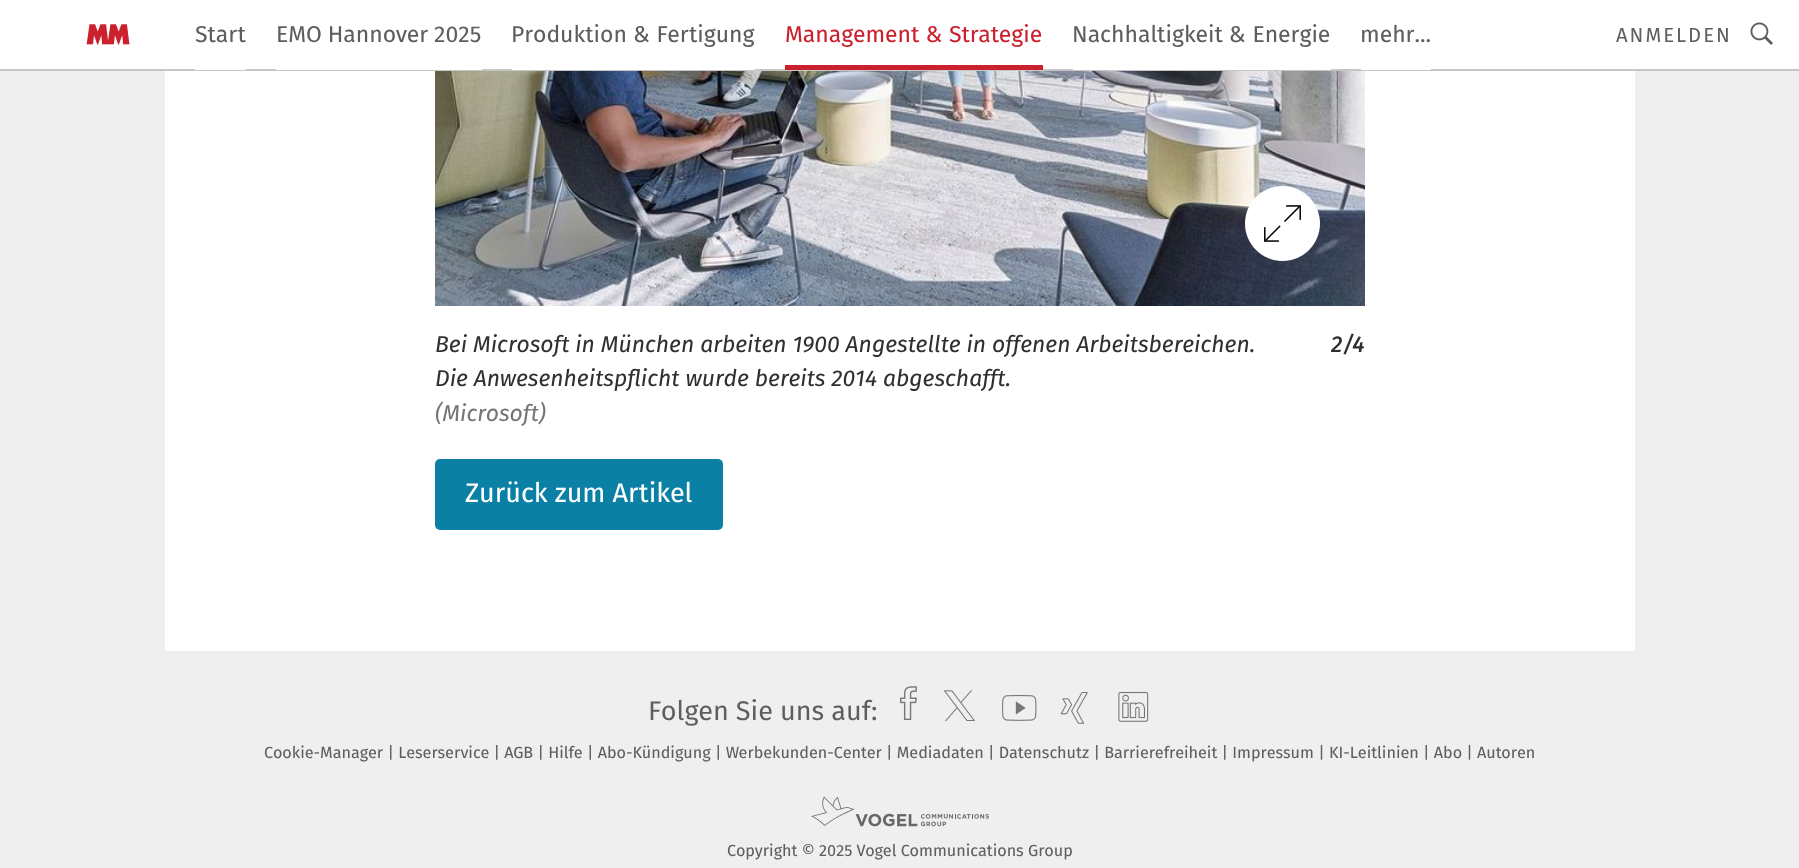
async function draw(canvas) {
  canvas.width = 1799
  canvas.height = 868
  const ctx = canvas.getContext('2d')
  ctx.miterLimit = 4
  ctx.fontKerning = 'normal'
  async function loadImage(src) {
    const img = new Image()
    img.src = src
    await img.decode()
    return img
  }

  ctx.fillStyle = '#efefef'
  ctx.fillRect(0, 0, 1799, 868)
  ctx.fillStyle = '#fff'
  ctx.fillRect(165, 71, 1470, 580)
  ctx.fillRect(0, 0, 1799, 69)
  ctx.fillStyle = '#c6c6c6'
  ctx.fillRect(0, 69, 1799, 2)
  ctx.drawImage(await loadImage('image0.png'), 86, 24, 44, 21)
  ctx.fillStyle = '#fff'
  ctx.fillRect(195, 69, 51, 1)
  ctx.font = '22.95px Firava'
  ctx.fillStyle = '#5e5e5e'
  ctx.fillText('Start', 195, 42)
  ctx.fillStyle = '#fff'
  ctx.fillRect(276, 69, 206, 1)
  ctx.fillStyle = '#5e5e5e'
  ctx.fillText('EMO Hannover 2025', 276, 42)
  ctx.fillStyle = '#fff'
  ctx.fillRect(512, 69, 243, 1)
  ctx.fillStyle = '#5e5e5e'
  ctx.fillText('Produktion & Fertigung', 511, 42)
  ctx.fillStyle = '#cb212f'
  ctx.fillRect(785, 65, 258, 5)
  ctx.fillText('Management & Strategie', 785, 42)
  ctx.fillStyle = '#fff'
  ctx.fillRect(1073, 69, 258, 1)
  ctx.fillStyle = '#5e5e5e'
  ctx.fillText('Nachhaltigkeit & Energie', 1072, 42)
  ctx.fillStyle = '#fff'
  ctx.fillRect(1361, 69, 70, 1)
  ctx.fillStyle = '#5e5e5e'
  ctx.fillText('mehr...', 1360, 42)
  ctx.letterSpacing = '2px'
  ctx.font = '20.25px "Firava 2"'
  ctx.fillText('ANMELDEN', 1616, 42)
  ctx.drawImage(await loadImage('image1.png'), 1750, 22, 23, 23)
  ctx.drawImage(await loadImage('image2.png'), 435, 71, 930, 235)
  ctx.drawImage(await loadImage('image3.png'), 1245, 186, 75, 75)
  ctx.letterSpacing = '0px'
  ctx.font = 'italic 22.95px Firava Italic'
  ctx.fillStyle = '#303030'
  ctx.fillText('Bei Microsoft in München arbeiten 1900 Angestellte in offenen Arbeitsbereichen.', 435, 352)
  ctx.fillText('Die Anwesenheitspflicht wurde bereits 2014 abgeschafft.', 435, 386)
  ctx.fillStyle = '#767676'
  ctx.fillText('(Microsoft)', 435, 421)
  ctx.font = 'italic 500 22.95px Firava Italic'
  ctx.fillStyle = '#303030'
  ctx.fillText('2/4', 1331, 352)
  ctx.fillStyle = '#0a80a5'
  ctx.beginPath()
  ctx.roundRect(435, 459, 288, 71, 5)
  ctx.fill()
  ctx.font = '27px Firava'
  ctx.fillStyle = '#fff'
  ctx.fillText('Zurück zum Artikel', 465, 502)
  ctx.font = '27px "Firava 2"'
  ctx.fillStyle = '#5e5e5e'
  ctx.fillText('Folgen Sie uns auf:', 648, 720)
  ctx.drawImage(await loadImage('image4.png'), 900, 686, 17, 34)
  ctx.drawImage(await loadImage('image5.png'), 943, 690, 33, 31)
  ctx.drawImage(await loadImage('image6.png'), 1002, 695, 35, 26)
  ctx.drawImage(await loadImage('image7.png'), 1060, 692, 28, 32)
  ctx.drawImage(await loadImage('image8.png'), 1118, 691, 31, 31)
  ctx.font = '16.2px Firava'
  ctx.fillText('Cookie-Manager | Leserservice | AGB | Hilfe | Abo-Kündigung | Werbekunden-Center | Mediadaten | Datenschutz | Barrierefreiheit | Impressum | KI-Leitlinien | Abo | Autoren', 264, 758)
  ctx.drawImage(await loadImage('image9.png'), 811, 796, 178, 31)
  ctx.fillText('Copyright © 2025 Vogel Communications Group', 727, 856)
}

draw(document.querySelector('canvas'))
